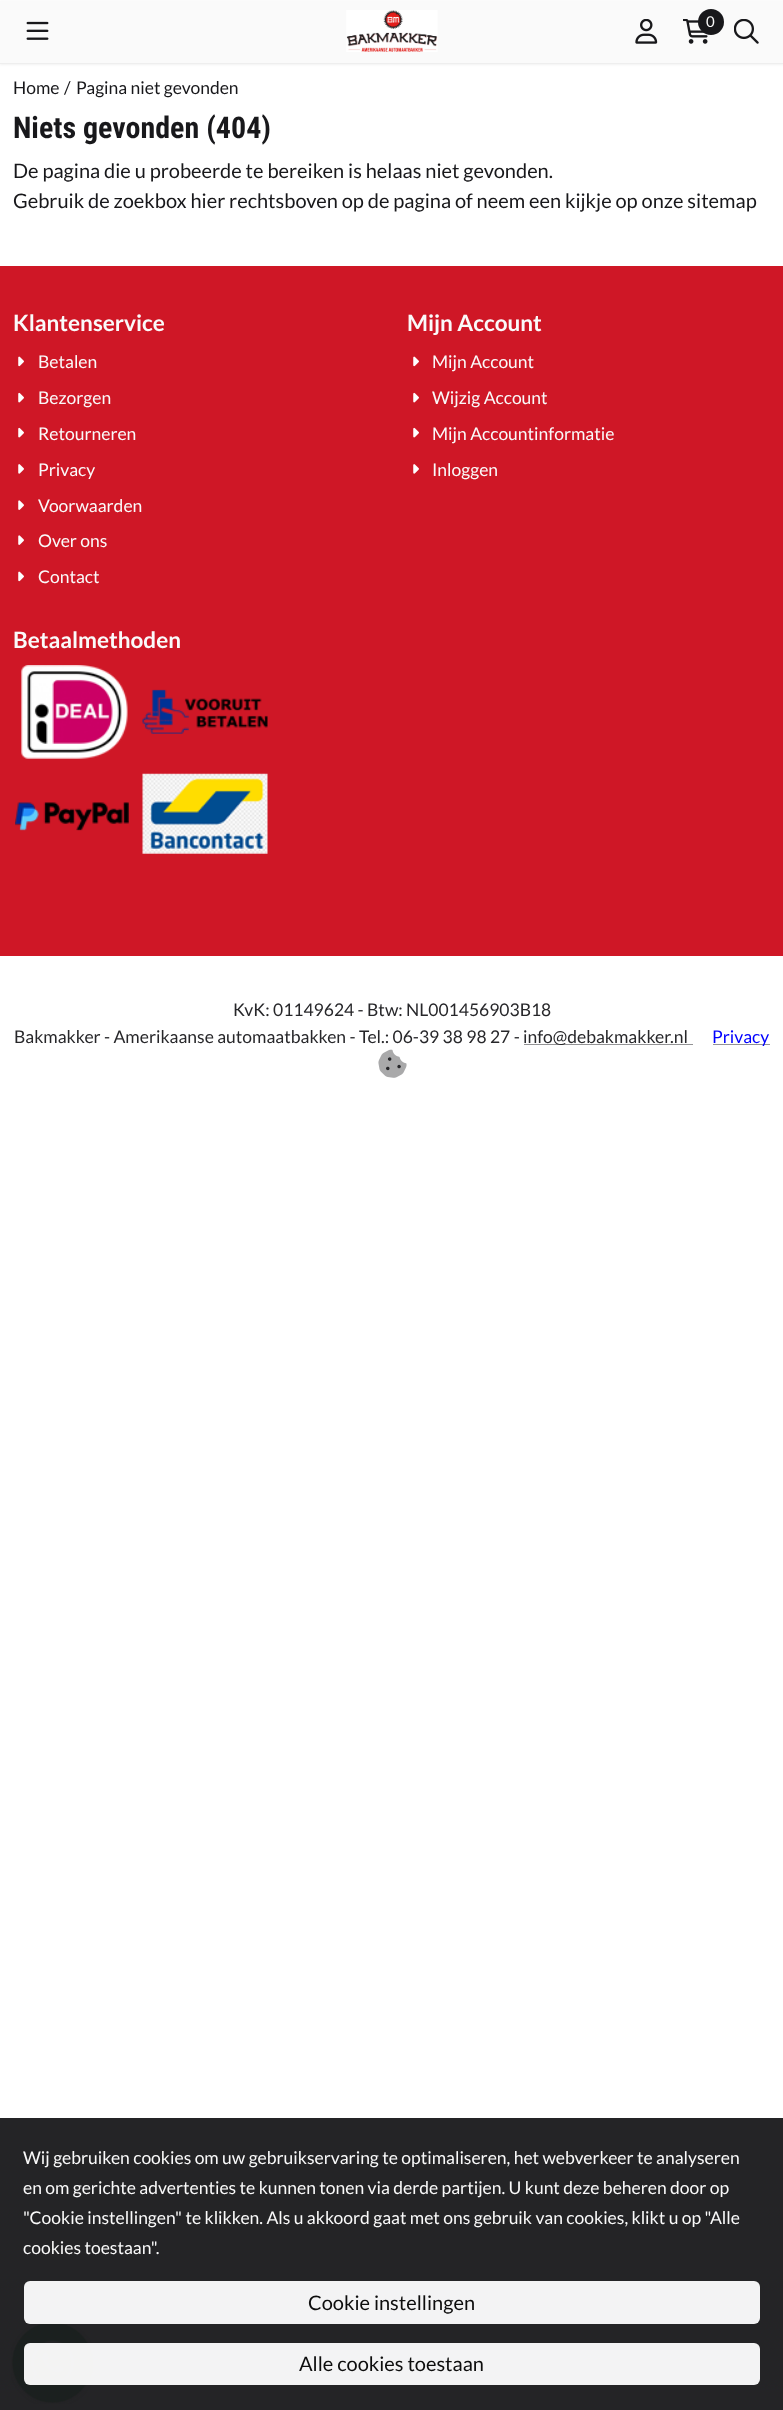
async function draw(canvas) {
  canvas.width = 783
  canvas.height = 2410
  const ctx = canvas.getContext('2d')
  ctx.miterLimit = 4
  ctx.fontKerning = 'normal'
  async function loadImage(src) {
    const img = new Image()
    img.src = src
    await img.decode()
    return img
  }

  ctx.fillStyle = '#fff'
  ctx.fillRect(0, 0, 783, 2410)
  ctx.fillStyle = '#242426'
  ctx.fillRect(0, 2118, 783, 292)
  ctx.fillStyle = '#0000000d'
  ctx.filter = 'blur(1px)'
  ctx.beginPath()
  ctx.rect(0, 1, 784, 64)
  ctx.fill()
  ctx.filter = 'none'
  ctx.fillStyle = '#fafafa'
  ctx.fillRect(0, 1, 783, 62)
  ctx.fillStyle = '#eee'
  ctx.fillRect(0, 63, 783, 1)
  ctx.drawImage(await loadImage('image0.png'), 26, 21, 23, 19)
  ctx.drawImage(await loadImage('image1.png'), 346, 10, 92, 42)
  ctx.drawImage(await loadImage('image2.png'), 635, 19, 23, 25)
  ctx.drawImage(await loadImage('image3.png'), 683, 19, 25, 25)
  ctx.fillStyle = '#18181b'
  ctx.beginPath()
  ctx.arc(711, 22, 13, 0, 2 * Math.PI)
  ctx.fill()
  ctx.font = '15px Lato'
  ctx.fillStyle = '#fafafa'
  ctx.fillText('0', 706, 27)
  ctx.drawImage(await loadImage('image4.png'), 734, 19, 25, 25)
  ctx.font = '17.5px Lato'
  ctx.fillStyle = '#18181b'
  ctx.fillText('Home', 13, 94)
  ctx.fillText('/', 64, 94)
  ctx.fillText('Pagina niet gevonden', 76, 94)
  ctx.font = 'bold 30px Roboto Condensed'
  ctx.fillText('Niets gevonden (404)', 13, 138)
  ctx.font = '20px Lato'
  ctx.fillText('De pagina die u probeerde te bereiken is helaas niet gevonden.', 13, 178)
  ctx.fillText('Gebruik de zoekbox hier rechtsboven op de pagina of neem een kijkje op onze sitemap', 13, 208)
  ctx.fillStyle = '#cf1726'
  ctx.fillRect(0, 266, 783, 690)
  ctx.font = 'bold 22.5px Lato'
  ctx.fillStyle = '#fafafa'
  ctx.fillText('Klantenservice', 13, 331)
  ctx.drawImage(await loadImage('image5.png'), 18, 356, 6, 11)
  ctx.font = '17.5px Lato'
  ctx.fillText('Betalen', 38, 368)
  ctx.drawImage(await loadImage('image6.png'), 18, 392, 6, 11)
  ctx.fillText('Bezorgen', 38, 404)
  ctx.drawImage(await loadImage('image6.png'), 18, 427, 6, 11)
  ctx.fillText('Retourneren', 38, 440)
  ctx.drawImage(await loadImage('image7.png'), 18, 464, 6, 10)
  ctx.fillText('Privacy', 38, 476)
  ctx.drawImage(await loadImage('image8.png'), 18, 500, 6, 10)
  ctx.fillText('Voorwaarden', 38, 512)
  ctx.drawImage(await loadImage('image8.png'), 18, 535, 6, 10)
  ctx.fillText('Over ons', 38, 547)
  ctx.drawImage(await loadImage('image5.png'), 18, 571, 6, 11)
  ctx.fillText('Contact', 38, 583)
  ctx.font = 'bold 22.5px Lato'
  ctx.fillText('Mijn Account', 407, 331)
  ctx.drawImage(await loadImage('image5.png'), 413, 356, 6, 11)
  ctx.font = '17.5px Lato'
  ctx.fillText('Mijn Account', 432, 368)
  ctx.drawImage(await loadImage('image6.png'), 413, 392, 6, 11)
  ctx.fillText('Wijzig Account', 432, 404)
  ctx.drawImage(await loadImage('image6.png'), 413, 427, 6, 11)
  ctx.fillText('Mijn Accountinformatie', 432, 440)
  ctx.drawImage(await loadImage('image7.png'), 413, 464, 6, 10)
  ctx.fillText('Inloggen', 432, 476)
  ctx.font = 'bold 22.5px Lato'
  ctx.fillText('Betaalmethoden', 13, 648)
  ctx.drawImage(await loadImage('image9.png'), 21, 665, 107, 94)
  ctx.drawImage(await loadImage('image10.png'), 142, 689, 126, 45)
  ctx.drawImage(await loadImage('image11.png'), 15, 802, 114, 29)
  ctx.drawImage(await loadImage('image12.png'), 142, 773, 126, 81)
  ctx.font = '17.5px Lato'
  ctx.fillStyle = '#27272a'
  ctx.fillText('KvK: 01149624 - Btw: NL001456903B18', 233, 1016)
  ctx.fillText('Bakmakker - Amerikaanse automaatbakken - Tel.: 06-39 38 98 27 -', 14, 1043)
  ctx.fillStyle = '#939395'
  ctx.fillRect(524, 1044, 169, 1)
  ctx.fillStyle = '#27272a'
  ctx.fillText('info@debakmakker.nl', 523, 1043)
  ctx.fillStyle = '#939395'
  ctx.fillRect(713, 1044, 57, 1)
  ctx.fillStyle = '#00f'
  ctx.fillText('Privacy', 712, 1043)
  ctx.drawImage(await loadImage('image13.png'), 378, 1049, 29, 29)
  ctx.fillStyle = '#fafafa'
  ctx.fillText('Wij gebruiken cookies om uw gebruikservaring te optimaliseren, het webverkeer te analyseren', 23, 2164)
  ctx.fillText('en om gerichte advertenties te kunnen tonen via derde partijen. U kunt deze beheren door op', 23, 2194)
  ctx.fillText('"Cookie instellingen" te klikken. Als u akkoord gaat met ons gebruik van cookies, klikt u op "Alle', 23, 2224)
  ctx.fillText('cookies toestaan".', 23, 2254)
  ctx.drawImage(await loadImage('image14.png'), 11, 2321, 83, 83)
  ctx.fillStyle = '#fffffff2'
  ctx.beginPath()
  ctx.roundRect(24, 2281, 736, 43, 6)
  ctx.fill()
  ctx.font = '20px Lato'
  ctx.fillStyle = '#0d0d0d'
  ctx.fillText('Cookie instellingen', 308, 2310)
  ctx.fillStyle = '#fffffff2'
  ctx.beginPath()
  ctx.roundRect(24, 2343, 736, 42, 6)
  ctx.fill()
  ctx.fillStyle = '#0d0d0d'
  ctx.fillText('Alle cookies toestaan', 299, 2371)
}

draw(document.querySelector('canvas'))
